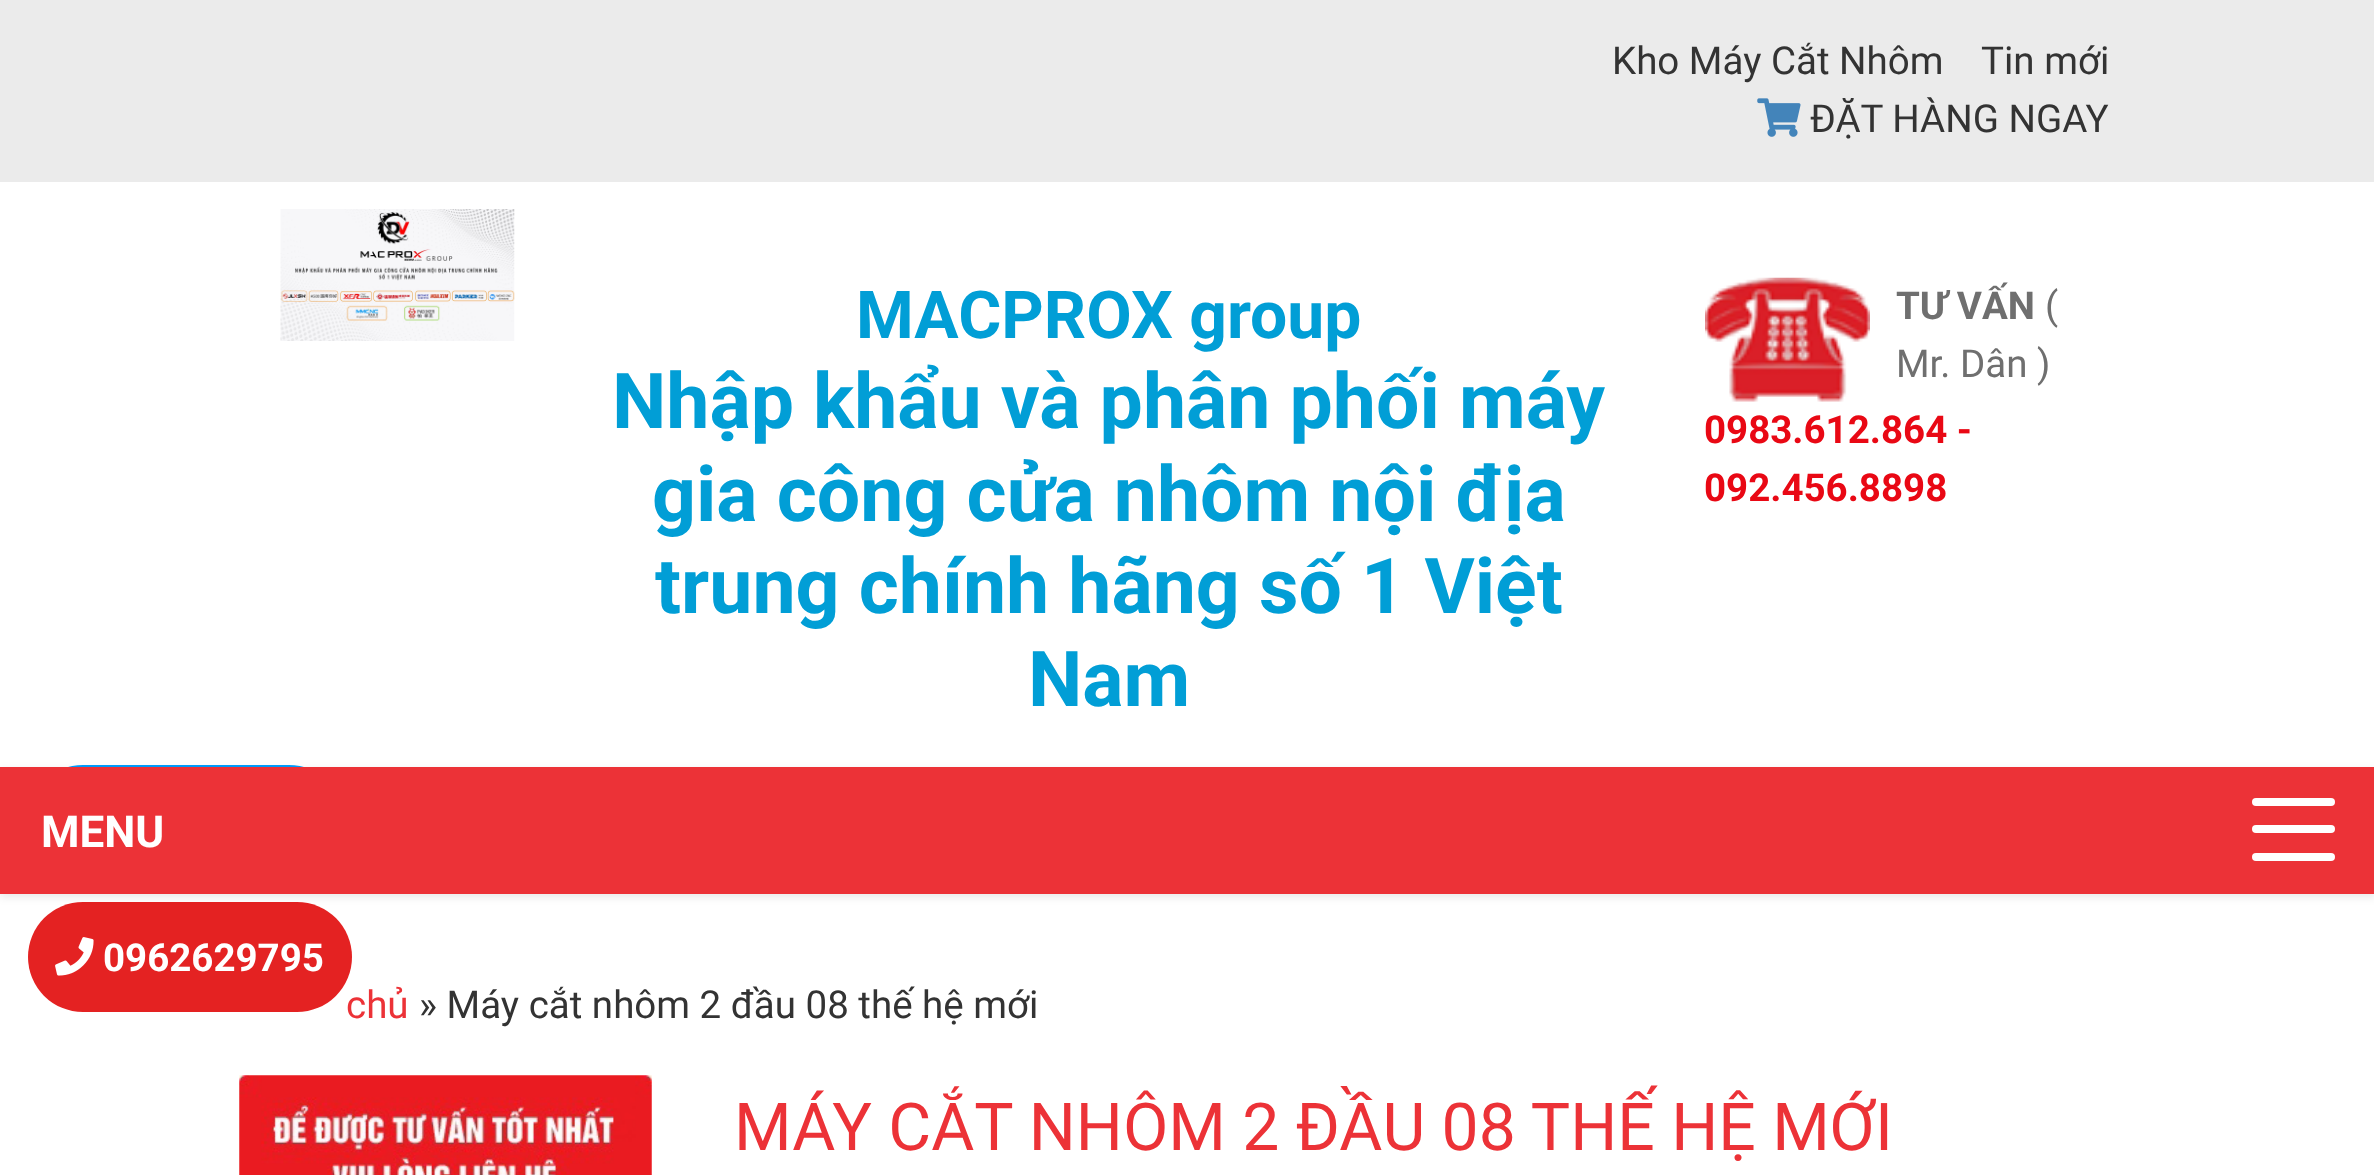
async function draw(canvas) {
  canvas.width = 2374
  canvas.height = 1175
  const ctx = canvas.getContext('2d')
  ctx.miterLimit = 4
  ctx.fontKerning = 'normal'
  async function loadImage(src) {
    const img = new Image()
    img.src = src
    await img.decode()
    return img
  }

  ctx.fillStyle = '#fff'
  ctx.fillRect(0, 0, 2374, 1175)
  ctx.fillStyle = '#ebebeb'
  ctx.fillRect(0, 0, 2374, 182)
  ctx.font = '38.5px Roboto'
  ctx.fillStyle = '#333'
  ctx.fillText('Kho Máy Cắt Nhôm', 1612, 74)
  ctx.fillText('Tin mới', 1981, 74)
  ctx.drawImage(await loadImage('image0.png'), 1757, 98, 44, 39)
  ctx.fillText('ĐẶT HÀNG NGAY', 1810, 132)
  ctx.drawImage(await loadImage('image1.png'), 280, 209, 235, 132)
  ctx.font = 'bold 66px Roboto'
  ctx.fillStyle = '#019ed6'
  ctx.fillText('MACPROX group', 856, 338)
  ctx.font = 'bold 77px Roboto'
  ctx.fillText('Nhập khẩu và phân phối máy', 612, 428)
  ctx.fillText('gia công cửa nhôm nội địa', 652, 521)
  ctx.fillText('trung chính hãng số 1 Việt', 655, 613)
  ctx.fillText('Nam', 1028, 706)
  ctx.drawImage(await loadImage('image2.png'), 1705, 277, 165, 125)
  ctx.font = 'bold 38.5px Roboto'
  ctx.fillStyle = '#6f6f6f'
  ctx.fillText('TƯ VẤN', 1896, 319)
  ctx.font = '38.5px Roboto'
  ctx.fillText('(', 2045, 319)
  ctx.fillText('Mr. Dân )', 1896, 377)
  ctx.font = 'bold 38.5px Roboto'
  ctx.fillStyle = '#e90814'
  ctx.fillText('0983.612.864 -', 1704, 443)
  ctx.fillText('092.456.8898', 1704, 501)
  ctx.fillStyle = '#009dff'
  ctx.beginPath()
  ctx.roundRect(28, 765, 316, 110, 55)
  ctx.fill()
  ctx.font = '38.5px Roboto'
  ctx.fillStyle = '#ec3237'
  ctx.fillText('chủ', 346, 1018)
  ctx.fillStyle = '#e42222'
  ctx.beginPath()
  ctx.roundRect(28, 902, 324, 110, 55)
  ctx.fill()
  ctx.fillStyle = '#00000017'
  ctx.filter = 'blur(4px)'
  ctx.beginPath()
  ctx.rect(0, 770, 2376, 127)
  ctx.fill()
  ctx.filter = 'none'
  ctx.fillStyle = '#ec3237'
  ctx.fillRect(0, 767, 2374, 127)
  ctx.font = 'bold 44px Roboto'
  ctx.fillStyle = '#fff'
  ctx.fillText('MENU', 41, 847)
  ctx.beginPath()
  ctx.roundRect(2252, 853, 83, 8, 4)
  ctx.fill()
  ctx.beginPath()
  ctx.roundRect(2252, 798, 83, 8, 4)
  ctx.fill()
  ctx.beginPath()
  ctx.roundRect(2252, 825, 83, 8, 4)
  ctx.fill()
  ctx.drawImage(await loadImage('image3.png'), 55, 937, 39, 39)
  ctx.font = 'bold 38.5px Roboto'
  ctx.fillText('0962629795', 103, 971)
  ctx.font = '38.5px Roboto'
  ctx.fillStyle = '#333'
  ctx.fillText('» Máy cắt nhôm 2 đầu 08 thế hệ mới', 419, 1018)
  ctx.drawImage(await loadImage('image4.png'), 239, 1075, 413, 100)
  ctx.font = '66px Roboto'
  ctx.fillStyle = '#ec3237'
  ctx.fillText('MÁY CẮT NHÔM 2 ĐẦU 08 THẾ HỆ MỚI', 734, 1150)
}

draw(document.querySelector('canvas'))
